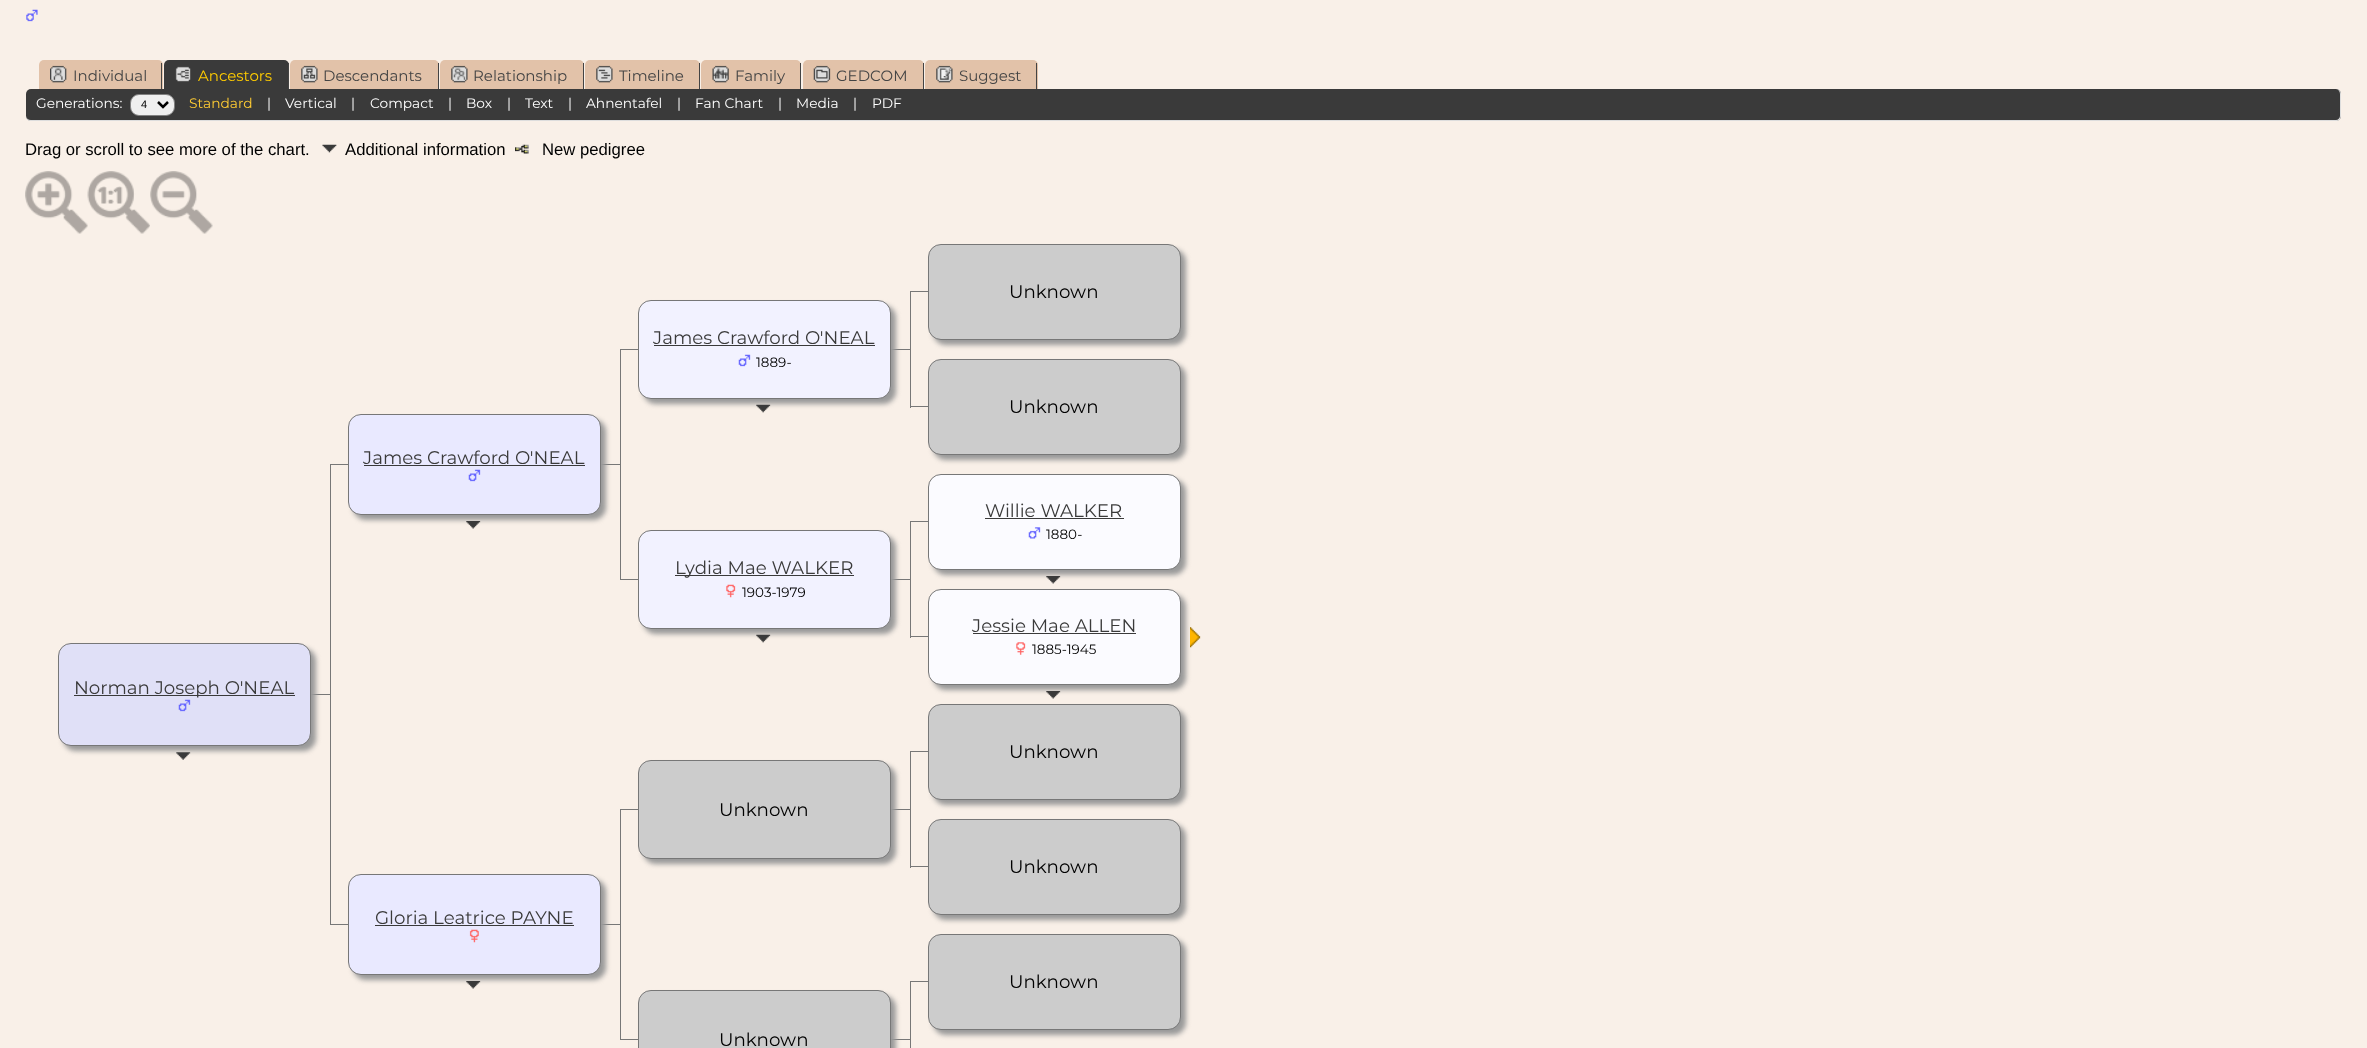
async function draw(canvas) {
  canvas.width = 2367
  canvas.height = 1048
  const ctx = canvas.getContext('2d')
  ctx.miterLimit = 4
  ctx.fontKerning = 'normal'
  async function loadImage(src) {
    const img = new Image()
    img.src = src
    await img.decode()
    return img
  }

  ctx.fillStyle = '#f9f0e8'
  ctx.fillRect(0, 0, 2367, 1048)
  ctx.drawImage(await loadImage('image0.png'), 26, 9, 12, 13)
  ctx.fillStyle = '#e2c2a9'
  ctx.beginPath()
  ctx.roundRect(39, 60, 124, 29, [5, 5, 0, 0])
  ctx.fill()
  ctx.fillStyle = '#444'
  ctx.fillRect(161, 63, 1, 26)
  ctx.drawImage(await loadImage('image1.png'), 50, 65, 17, 18)
  ctx.font = '100 15px Montserrat'
  ctx.fillText('Individual', 73, 81)
  ctx.fillStyle = '#3a3a3a'
  ctx.beginPath()
  ctx.roundRect(164, 60, 125, 29, [5, 5, 0, 0])
  ctx.fill()
  ctx.fillStyle = '#444'
  ctx.fillRect(288, 63, 1, 26)
  ctx.drawImage(await loadImage('image2.png'), 175, 66, 16, 16)
  ctx.fillStyle = '#fc0'
  ctx.fillText('Ancestors', 198, 81)
  ctx.fillStyle = '#e2c2a9'
  ctx.beginPath()
  ctx.roundRect(290, 60, 149, 29, [5, 5, 0, 0])
  ctx.fill()
  ctx.fillStyle = '#444'
  ctx.fillRect(438, 63, 1, 26)
  ctx.drawImage(await loadImage('image3.png'), 301, 65, 17, 18)
  ctx.fillText('Descendants', 323, 81)
  ctx.fillStyle = '#e2c2a9'
  ctx.beginPath()
  ctx.roundRect(440, 60, 144, 29, [5, 5, 0, 0])
  ctx.fill()
  ctx.fillStyle = '#444'
  ctx.fillRect(583, 63, 1, 26)
  ctx.drawImage(await loadImage('image4.png'), 451, 65, 17, 18)
  ctx.fillText('Relationship', 473, 81)
  ctx.fillStyle = '#e2c2a9'
  ctx.beginPath()
  ctx.roundRect(585, 60, 115, 29, [5, 5, 0, 0])
  ctx.fill()
  ctx.fillStyle = '#444'
  ctx.fillRect(699, 63, 1, 26)
  ctx.drawImage(await loadImage('image5.png'), 596, 65, 17, 18)
  ctx.fillText('Timeline', 619, 81)
  ctx.fillStyle = '#e2c2a9'
  ctx.beginPath()
  ctx.roundRect(701, 60, 100, 29, [5, 5, 0, 0])
  ctx.fill()
  ctx.fillStyle = '#444'
  ctx.fillRect(800, 63, 1, 26)
  ctx.drawImage(await loadImage('image6.png'), 712, 65, 17, 18)
  ctx.fillText('Family', 735, 81)
  ctx.fillStyle = '#e2c2a9'
  ctx.beginPath()
  ctx.roundRect(803, 60, 121, 29, [5, 5, 0, 0])
  ctx.fill()
  ctx.fillStyle = '#444'
  ctx.fillRect(923, 63, 1, 26)
  ctx.drawImage(await loadImage('image7.png'), 813, 65, 18, 18)
  ctx.fillText('GEDCOM', 836, 81)
  ctx.fillStyle = '#e2c2a9'
  ctx.beginPath()
  ctx.roundRect(925, 60, 113, 29, [5, 5, 0, 0])
  ctx.fill()
  ctx.fillStyle = '#444'
  ctx.fillRect(1036, 63, 1, 26)
  ctx.drawImage(await loadImage('image8.png'), 936, 65, 17, 18)
  ctx.fillText('Suggest', 959, 81)
  ctx.fillStyle = '#3a3a3a'
  ctx.beginPath()
  ctx.roundRect(26, 89, 2315, 32, 5)
  ctx.fill()
  ctx.fillStyle = '#ddd'
  ctx.beginPath()
  ctx.moveTo(31, 89)
  ctx.lineTo(2336, 89)
  ctx.bezierCurveTo(2339, 89, 2341, 91, 2341, 94)
  ctx.lineTo(2341, 116)
  ctx.bezierCurveTo(2341, 119, 2339, 121, 2336, 121)
  ctx.lineTo(31, 121)
  ctx.bezierCurveTo(28, 121, 26, 119, 26, 116)
  ctx.lineTo(26, 94)
  ctx.bezierCurveTo(26, 91, 28, 89, 31, 89)
  ctx.closePath()
  ctx.moveTo(31, 89)
  ctx.lineTo(2336, 89)
  ctx.bezierCurveTo(2338, 89, 2340, 91, 2340, 94)
  ctx.lineTo(2340, 116)
  ctx.bezierCurveTo(2340, 118, 2338, 120, 2336, 120)
  ctx.lineTo(31, 120)
  ctx.bezierCurveTo(28, 120, 26, 118, 26, 116)
  ctx.lineTo(26, 94)
  ctx.bezierCurveTo(26, 91, 28, 89, 31, 89)
  ctx.closePath()
  ctx.fill('evenodd')
  ctx.font = '100 13.75px Montserrat'
  ctx.fillStyle = '#fff'
  ctx.fillText('Generations:', 36, 108)
  ctx.fillStyle = '#efefef'
  ctx.beginPath()
  ctx.roundRect(130.5, 94.5, 44, 21, 8.5)
  ctx.fill()
  ctx.strokeStyle = '#808080'
  ctx.stroke()
  ctx.beginPath()
  ctx.moveTo(158, 102)
  ctx.lineTo(163, 107)
  ctx.lineTo(168, 102)
  ctx.strokeStyle = '#000'
  ctx.lineWidth = 2.5
  ctx.stroke()
  ctx.font = '11px Liberation Sans'
  ctx.fillStyle = '#000'
  ctx.fillText('4', 141, 108)
  ctx.font = '100 13.75px Montserrat'
  ctx.fillStyle = '#fc3'
  ctx.fillText('Standard', 189, 108)
  ctx.fillStyle = '#fff'
  ctx.fillText('|', 267, 108)
  ctx.fillText('Vertical', 285, 108)
  ctx.fillText('|', 351, 108)
  ctx.fillText('Compact', 370, 108)
  ctx.fillText('|', 448, 108)
  ctx.fillText('Box', 466, 108)
  ctx.fillText('|', 507, 108)
  ctx.fillText('Text', 525, 108)
  ctx.fillText('|', 568, 108)
  ctx.fillText('Ahnentafel', 586, 108)
  ctx.fillText('|', 677, 108)
  ctx.fillText('Fan Chart', 695, 108)
  ctx.fillText('|', 778, 108)
  ctx.fillText('Media', 796, 108)
  ctx.fillText('|', 853, 108)
  ctx.fillText('PDF', 872, 108)
  ctx.font = '16.7px Liberation Sans'
  ctx.fillStyle = '#000'
  ctx.fillText('Drag or scroll to see more of the chart.', 25, 155)
  ctx.drawImage(await loadImage('image9.png'), 322, 144, 15, 9)
  ctx.fillText('Additional information', 345, 155)
  ctx.drawImage(await loadImage('image10.png'), 515, 144, 14, 10)
  ctx.fillText('New pedigree', 542, 155)
  ctx.drawImage(await loadImage('image11.png'), 25, 171, 63, 63)
  ctx.drawImage(await loadImage('image12.png'), 87, 171, 63, 63)
  ctx.drawImage(await loadImage('image13.png'), 150, 171, 63, 63)
  ctx.fillStyle = '#777'
  ctx.fillRect(910, 291, 21, 1)
  ctx.fillStyle = '#999'
  ctx.filter = 'blur(2.5px)'
  ctx.beginPath()
  ctx.roundRect(933, 249, 253, 96, 13)
  ctx.fill()
  ctx.filter = 'none'
  ctx.fillStyle = '#ccc'
  ctx.beginPath()
  ctx.roundRect(928.5, 244.5, 252, 95, 12.5)
  ctx.fill()
  ctx.strokeStyle = '#777'
  ctx.lineWidth = 1
  ctx.stroke()
  ctx.font = '100 18.25px Montserrat'
  ctx.fillStyle = '#000'
  ctx.fillText('Unknown', 1009, 298)
  ctx.fillStyle = '#777'
  ctx.fillRect(620, 349, 21, 1)
  ctx.fillRect(890, 349, 20, 1)
  ctx.fillStyle = '#999'
  ctx.filter = 'blur(2.5px)'
  ctx.beginPath()
  ctx.roundRect(643, 305, 253, 99, 13)
  ctx.fill()
  ctx.filter = 'none'
  ctx.fillStyle = '#f2f2ff'
  ctx.beginPath()
  ctx.roundRect(638.5, 300.5, 252, 98, 12.5)
  ctx.fill()
  ctx.stroke()
  ctx.fillStyle = '#3a3a3a'
  ctx.fillText('James Crawford O\'NEAL', 653, 344)
  ctx.fillRect(654, 345, 221, 1)
  ctx.drawImage(await loadImage('image14.png'), 738, 354, 13, 13)
  ctx.font = '100 13.5px Montserrat'
  ctx.fillStyle = '#000'
  ctx.fillText('1889-', 756, 367)
  ctx.drawImage(await loadImage('image15.png'), 756, 404, 15, 9)
  ctx.fillStyle = '#777'
  ctx.fillRect(910, 291, 1, 59)
  ctx.fillRect(620, 349, 1, 116)
  ctx.fillRect(910, 406, 21, 1)
  ctx.fillRect(910, 350, 1, 58)
  ctx.fillStyle = '#999'
  ctx.filter = 'blur(2.5px)'
  ctx.beginPath()
  ctx.roundRect(933, 364, 253, 96, 13)
  ctx.fill()
  ctx.filter = 'none'
  ctx.fillStyle = '#ccc'
  ctx.beginPath()
  ctx.roundRect(928.5, 359.5, 252, 95, 12.5)
  ctx.fill()
  ctx.stroke()
  ctx.font = '100 18.25px Montserrat'
  ctx.fillStyle = '#000'
  ctx.fillText('Unknown', 1009, 413)
  ctx.fillStyle = '#777'
  ctx.fillRect(330, 464, 21, 1)
  ctx.fillRect(600, 464, 20, 1)
  ctx.fillStyle = '#999'
  ctx.filter = 'blur(2.5px)'
  ctx.beginPath()
  ctx.roundRect(353, 419, 253, 101, 13)
  ctx.fill()
  ctx.filter = 'none'
  ctx.fillStyle = '#e9e9ff'
  ctx.beginPath()
  ctx.roundRect(348.5, 414.5, 252, 100, 12.5)
  ctx.fill()
  ctx.stroke()
  ctx.fillStyle = '#3a3a3a'
  ctx.fillText('James Crawford O\'NEAL', 363, 464)
  ctx.fillRect(364, 465, 221, 1)
  ctx.drawImage(await loadImage('image16.png'), 468, 469, 13, 13)
  ctx.drawImage(await loadImage('image17.png'), 466, 521, 15, 8)
  ctx.fillStyle = '#777'
  ctx.fillRect(330, 464, 1, 231)
  ctx.fillRect(620, 579, 21, 1)
  ctx.fillRect(620, 465, 1, 115)
  ctx.fillRect(910, 521, 21, 1)
  ctx.fillStyle = '#999'
  ctx.filter = 'blur(2.5px)'
  ctx.beginPath()
  ctx.roundRect(933, 479, 253, 96, 13)
  ctx.fill()
  ctx.filter = 'none'
  ctx.fillStyle = '#fbfbff'
  ctx.beginPath()
  ctx.roundRect(928.5, 474.5, 252, 95, 12.5)
  ctx.fill()
  ctx.stroke()
  ctx.fillStyle = '#3a3a3a'
  ctx.fillText('Willie WALKER', 985, 517)
  ctx.fillRect(985, 518, 139, 1)
  ctx.drawImage(await loadImage('image18.png'), 1028, 527, 13, 12)
  ctx.font = '100 13.5px Montserrat'
  ctx.fillStyle = '#000'
  ctx.fillText('1880-', 1046, 539)
  ctx.drawImage(await loadImage('image19.png'), 1046, 576, 15, 8)
  ctx.fillStyle = '#777'
  ctx.fillRect(890, 579, 20, 1)
  ctx.fillStyle = '#999'
  ctx.filter = 'blur(2.5px)'
  ctx.beginPath()
  ctx.roundRect(643, 535, 253, 99, 13)
  ctx.fill()
  ctx.filter = 'none'
  ctx.fillStyle = '#f2f2ff'
  ctx.beginPath()
  ctx.roundRect(638.5, 530.5, 252, 98, 12.5)
  ctx.fill()
  ctx.stroke()
  ctx.fillStyle = '#3a3a3a'
  ctx.fillRect(675, 575, 179, 1)
  ctx.font = '100 18.25px Montserrat'
  ctx.fillText('Lydia Mae WALKER', 675, 574)
  ctx.drawImage(await loadImage('image20.png'), 726, 584, 10, 14)
  ctx.font = '100 13.5px Montserrat'
  ctx.fillStyle = '#000'
  ctx.fillText('1903-1979', 742, 597)
  ctx.drawImage(await loadImage('image15.png'), 756, 634, 15, 9)
  ctx.fillStyle = '#777'
  ctx.fillRect(910, 521, 1, 59)
  ctx.fillRect(910, 636, 21, 1)
  ctx.fillRect(910, 580, 1, 58)
  ctx.fillStyle = '#999'
  ctx.filter = 'blur(2.5px)'
  ctx.beginPath()
  ctx.roundRect(933, 594, 253, 96, 13)
  ctx.fill()
  ctx.filter = 'none'
  ctx.fillStyle = '#fbfbff'
  ctx.beginPath()
  ctx.roundRect(928.5, 589.5, 252, 95, 12.5)
  ctx.fill()
  ctx.stroke()
  ctx.font = '100 18.25px Montserrat'
  ctx.fillStyle = '#3a3a3a'
  ctx.fillText('Jessie Mae ALLEN', 972, 632)
  ctx.fillRect(973, 633, 163, 1)
  ctx.drawImage(await loadImage('image21.png'), 1016, 642, 10, 13)
  ctx.font = '100 13.5px Montserrat'
  ctx.fillStyle = '#000'
  ctx.fillText('1885-1945', 1032, 654)
  ctx.drawImage(await loadImage('image19.png'), 1046, 691, 15, 8)
  ctx.drawImage(await loadImage('image22.png'), 1190, 627, 11, 21)
  ctx.fillStyle = '#777'
  ctx.fillRect(310, 694, 20, 1)
  ctx.fillStyle = '#999'
  ctx.filter = 'blur(2.5px)'
  ctx.beginPath()
  ctx.roundRect(63, 648, 253, 103, 13)
  ctx.fill()
  ctx.filter = 'none'
  ctx.fillStyle = '#e0e0f7'
  ctx.beginPath()
  ctx.roundRect(58.5, 643.5, 252, 102, 12.5)
  ctx.fill()
  ctx.stroke()
  ctx.fillStyle = '#3a3a3a'
  ctx.fillRect(74, 695, 221, 1)
  ctx.font = '100 18.25px Montserrat'
  ctx.fillText('Norman Joseph O\'NEAL', 74, 694)
  ctx.drawImage(await loadImage('image23.png'), 178, 699, 13, 13)
  ctx.drawImage(await loadImage('image24.png'), 176, 752, 15, 8)
  ctx.fillStyle = '#777'
  ctx.fillRect(330, 924, 21, 1)
  ctx.fillRect(330, 695, 1, 230)
  ctx.fillRect(910, 751, 21, 1)
  ctx.fillStyle = '#999'
  ctx.filter = 'blur(2.5px)'
  ctx.beginPath()
  ctx.roundRect(933, 709, 253, 96, 13)
  ctx.fill()
  ctx.filter = 'none'
  ctx.fillStyle = '#ccc'
  ctx.beginPath()
  ctx.roundRect(928.5, 704.5, 252, 95, 12.5)
  ctx.fill()
  ctx.stroke()
  ctx.fillStyle = '#000'
  ctx.fillText('Unknown', 1009, 758)
  ctx.fillStyle = '#777'
  ctx.fillRect(620, 809, 21, 1)
  ctx.fillRect(890, 809, 20, 1)
  ctx.fillStyle = '#999'
  ctx.filter = 'blur(2.5px)'
  ctx.beginPath()
  ctx.roundRect(643, 765, 253, 99, 13)
  ctx.fill()
  ctx.filter = 'none'
  ctx.fillStyle = '#ccc'
  ctx.beginPath()
  ctx.roundRect(638.5, 760.5, 252, 98, 12.5)
  ctx.fill()
  ctx.stroke()
  ctx.fillStyle = '#000'
  ctx.fillText('Unknown', 719, 816)
  ctx.fillStyle = '#777'
  ctx.fillRect(910, 751, 1, 59)
  ctx.fillRect(620, 809, 1, 116)
  ctx.fillRect(910, 866, 21, 1)
  ctx.fillRect(910, 810, 1, 58)
  ctx.fillStyle = '#999'
  ctx.filter = 'blur(2.5px)'
  ctx.beginPath()
  ctx.roundRect(933, 824, 253, 96, 13)
  ctx.fill()
  ctx.filter = 'none'
  ctx.fillStyle = '#ccc'
  ctx.beginPath()
  ctx.roundRect(928.5, 819.5, 252, 95, 12.5)
  ctx.fill()
  ctx.stroke()
  ctx.fillStyle = '#000'
  ctx.fillText('Unknown', 1009, 873)
  ctx.fillStyle = '#777'
  ctx.fillRect(600, 924, 20, 1)
  ctx.fillStyle = '#999'
  ctx.filter = 'blur(2.5px)'
  ctx.beginPath()
  ctx.roundRect(353, 879, 253, 101, 13)
  ctx.fill()
  ctx.filter = 'none'
  ctx.fillStyle = '#e9e9ff'
  ctx.beginPath()
  ctx.roundRect(348.5, 874.5, 252, 100, 12.5)
  ctx.fill()
  ctx.stroke()
  ctx.fillStyle = '#3a3a3a'
  ctx.fillText('Gloria Leatrice PAYNE', 375, 924)
  ctx.fillRect(375, 925, 199, 1)
  ctx.drawImage(await loadImage('image25.png'), 469, 929, 10, 14)
  ctx.drawImage(await loadImage('image17.png'), 466, 981, 15, 8)
  ctx.fillStyle = '#777'
  ctx.fillRect(620, 1039, 21, 1)
  ctx.fillRect(620, 925, 1, 115)
  ctx.fillRect(910, 981, 21, 1)
  ctx.fillStyle = '#999'
  ctx.filter = 'blur(2.5px)'
  ctx.beginPath()
  ctx.roundRect(933, 939, 253, 96, 13)
  ctx.fill()
  ctx.filter = 'none'
  ctx.fillStyle = '#ccc'
  ctx.beginPath()
  ctx.roundRect(928.5, 934.5, 252, 95, 12.5)
  ctx.fill()
  ctx.stroke()
  ctx.fillStyle = '#000'
  ctx.fillText('Unknown', 1009, 988)
  ctx.fillStyle = '#777'
  ctx.fillRect(890, 1039, 20, 1)
  ctx.fillStyle = '#999'
  ctx.filter = 'blur(2.5px)'
  ctx.beginPath()
  ctx.roundRect(643, 995, 253, 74, 13)
  ctx.fill()
  ctx.filter = 'none'
  ctx.fillStyle = '#ccc'
  ctx.beginPath()
  ctx.roundRect(638.5, 990.5, 252, 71, 12.5)
  ctx.fill()
  ctx.stroke()
  ctx.fillStyle = '#000'
  ctx.fillText('Unknown', 719, 1046)
  ctx.fillStyle = '#777'
  ctx.fillRect(910, 981, 1, 67)
}

draw(document.querySelector('canvas'))
